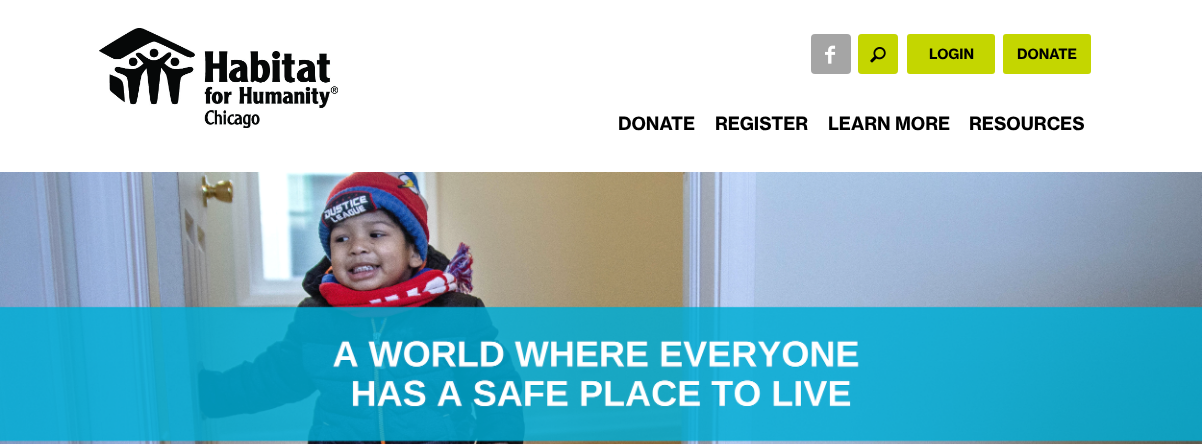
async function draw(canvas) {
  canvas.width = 1202
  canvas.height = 444
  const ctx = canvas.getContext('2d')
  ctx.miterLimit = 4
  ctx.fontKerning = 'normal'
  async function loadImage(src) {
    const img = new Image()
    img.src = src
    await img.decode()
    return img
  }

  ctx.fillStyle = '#fff'
  ctx.fillRect(0, 0, 1202, 444)
  ctx.drawImage(await loadImage('image0.png'), 99, 28, 239, 100)
  ctx.fillStyle = '#a5a5a5'
  ctx.beginPath()
  ctx.roundRect(811, 34, 40, 40, 4)
  ctx.fill()
  ctx.drawImage(await loadImage('image1.png'), 825, 45, 11, 19)
  ctx.beginPath()
  ctx.roundRect(858.5, 34.5, 39, 39, 2.5)
  ctx.strokeStyle = '#dddad6'
  ctx.stroke()
  ctx.fillStyle = '#c4d600'
  ctx.beginPath()
  ctx.roundRect(858, 34, 40, 40, 4)
  ctx.fill()
  ctx.drawImage(await loadImage('image2.png'), 870, 47, 16, 16)
  ctx.beginPath()
  ctx.roundRect(907, 34, 88, 40, 3)
  ctx.fill()
  ctx.font = 'bold 14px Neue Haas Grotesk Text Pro'
  ctx.fillStyle = '#000'
  ctx.fillText('LOGIN', 929, 59)
  ctx.fillStyle = '#c4d600'
  ctx.beginPath()
  ctx.roundRect(1003, 34, 88, 40, 3)
  ctx.fill()
  ctx.fillStyle = '#000'
  ctx.fillText('DONATE', 1017, 59)
  ctx.font = 'bold 18px Neue Haas Grotesk Text Pro'
  ctx.fillText('DONATE', 618, 130)
  ctx.fillText('REGISTER', 715, 130)
  ctx.fillText('LEARN MORE', 828, 130)
  ctx.fillText('RESOURCES', 969, 130)
  ctx.drawImage(await loadImage('image3.png'), 0, 172, 1202, 272)
}

draw(document.querySelector('canvas'))
